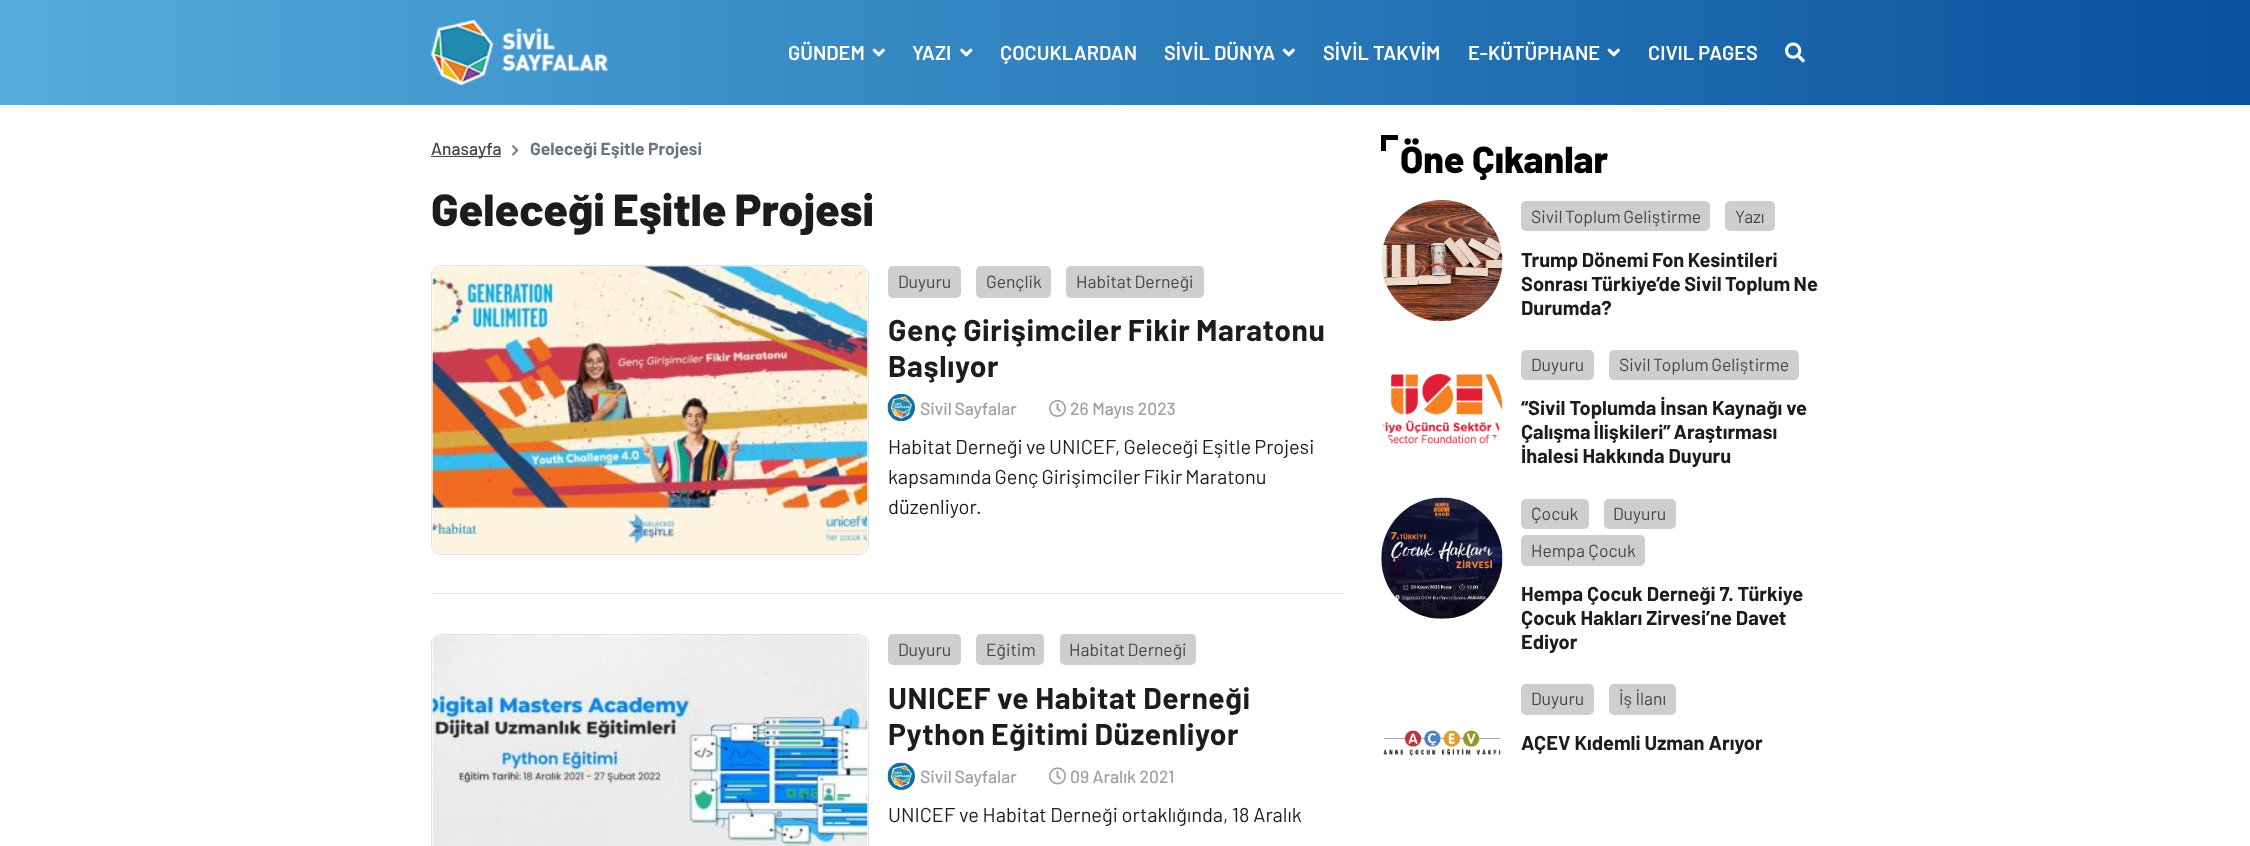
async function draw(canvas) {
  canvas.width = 2250
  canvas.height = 846
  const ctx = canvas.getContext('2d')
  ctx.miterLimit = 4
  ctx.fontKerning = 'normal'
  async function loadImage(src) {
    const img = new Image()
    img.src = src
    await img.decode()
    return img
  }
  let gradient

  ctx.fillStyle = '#fff'
  ctx.fillRect(0, 0, 2250, 846)
  gradient = ctx.createLinearGradient(0, 53, 2250, 52)
  gradient.addColorStop(0, '#54addd')
  gradient.addColorStop(0.4, '#3688c3')
  gradient.addColorStop(1, '#09519d')
  ctx.fillStyle = gradient
  ctx.fillRect(0, 0, 2250, 105)
  ctx.drawImage(await loadImage('image0.png'), 431, 20, 177, 65)
  ctx.font = '600 20px Barlow'
  ctx.fillStyle = '#fff'
  ctx.fillText('GÜNDEM', 788, 60)
  ctx.drawImage(await loadImage('image1.png'), 872, 48, 13, 9)
  ctx.fillText('YAZI', 912, 60)
  ctx.drawImage(await loadImage('image2.png'), 960, 48, 13, 9)
  ctx.fillText('ÇOCUKLARDAN', 1000, 60)
  ctx.fillText('SİVİL DÜNYA', 1164, 60)
  ctx.drawImage(await loadImage('image3.png'), 1282, 48, 13, 9)
  ctx.fillText('SİVİL TAKVİM', 1323, 60)
  ctx.fillText('E-KÜTÜPHANE', 1468, 60)
  ctx.drawImage(await loadImage('image4.png'), 1607, 48, 13, 9)
  ctx.fillText('CIVIL PAGES', 1648, 60)
  ctx.drawImage(await loadImage('image5.png'), 1785, 42, 20, 21)
  ctx.fillStyle = '#454545'
  ctx.fillRect(431, 156, 70, 1)
  ctx.font = '500 17.5px Barlow'
  ctx.fillText('Anasayfa', 431, 155)
  ctx.drawImage(await loadImage('image6.png'), 512, 145, 7, 11)
  ctx.font = 'bold 17.5px Barlow'
  ctx.fillStyle = '#6c757d'
  ctx.fillText('Geleceği Eşitle Projesi', 530, 155)
  ctx.wordSpacing = '-1px'
  ctx.font = '800 45px Barlow'
  ctx.fillStyle = '#1c1c1c'
  ctx.fillText('Geleceği Eşitle Projesi', 431, 226)
  ctx.fillStyle = '#e6e6e6'
  ctx.fillRect(431, 593, 913, 1)
  ctx.beginPath()
  ctx.roundRect(431.5, 265.5, 437, 289, 9.5)
  ctx.strokeStyle = '#dee2e6'
  ctx.stroke()
  ctx.drawImage(await loadImage('image7.png'), 432, 266, 436, 288)
  ctx.fillStyle = '#cecece'
  ctx.beginPath()
  ctx.roundRect(888, 266, 73, 32, 5)
  ctx.fill()
  ctx.wordSpacing = '0px'
  ctx.font = '17.5px Barlow'
  ctx.fillStyle = '#454545'
  ctx.fillText('Duyuru', 898, 288)
  ctx.fillStyle = '#cecece'
  ctx.beginPath()
  ctx.roundRect(976, 266, 75, 32, 5)
  ctx.fill()
  ctx.fillStyle = '#454545'
  ctx.fillText('Gençlik', 986, 288)
  ctx.fillStyle = '#cecece'
  ctx.beginPath()
  ctx.roundRect(1066, 266, 138, 32, 5)
  ctx.fill()
  ctx.wordSpacing = '-1px'
  ctx.fillStyle = '#454545'
  ctx.fillText('Habitat Derneği', 1076, 288)
  ctx.letterSpacing = '0.6px'
  ctx.font = 'bold 30px Barlow'
  ctx.fillStyle = '#1c1c1c'
  ctx.fillText('Genç Girişimciler Fikir Maratonu', 888, 341)
  ctx.wordSpacing = '0px'
  ctx.fillText('Başlıyor', 888, 377)
  ctx.drawImage(await loadImage('image8.png'), 887, 393, 28, 29)
  ctx.letterSpacing = '0px'
  ctx.wordSpacing = '-1px'
  ctx.font = '500 17.5px Barlow'
  ctx.fillStyle = '#a1a1a1'
  ctx.fillText('Sivil Sayfalar', 920, 415)
  ctx.drawImage(await loadImage('image9.png'), 1049, 400, 17, 17)
  ctx.wordSpacing = '0px'
  ctx.fillText('26 Mayıs 2023', 1070, 415)
  ctx.wordSpacing = '-0.75px'
  ctx.font = '20px Barlow'
  ctx.fillStyle = '#1c1c1c'
  ctx.fillText('Habitat Derneği ve UNICEF, Geleceği Eşitle Projesi', 888, 454)
  ctx.wordSpacing = '-1px'
  ctx.fillText('kapsamında Genç Girişimciler Fikir Maratonu', 888, 484)
  ctx.wordSpacing = '0px'
  ctx.fillText('düzenliyor.', 888, 514)
  ctx.beginPath()
  ctx.roundRect(431.5, 634.5, 437, 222, 9.5)
  ctx.stroke()
  ctx.drawImage(await loadImage('image10.png'), 432, 635, 436, 211)
  ctx.fillStyle = '#cecece'
  ctx.beginPath()
  ctx.roundRect(888, 634, 73, 31, 5)
  ctx.fill()
  ctx.font = '17.5px Barlow'
  ctx.fillStyle = '#454545'
  ctx.fillText('Duyuru', 898, 656)
  ctx.fillStyle = '#cecece'
  ctx.beginPath()
  ctx.roundRect(976, 634, 68, 31, 5)
  ctx.fill()
  ctx.fillStyle = '#454545'
  ctx.fillText('Eğitim', 986, 656)
  ctx.fillStyle = '#cecece'
  ctx.beginPath()
  ctx.roundRect(1060, 634, 136, 31, 5)
  ctx.fill()
  ctx.wordSpacing = '-1px'
  ctx.fillStyle = '#454545'
  ctx.fillText('Habitat Derneği', 1069, 656)
  ctx.letterSpacing = '0.6px'
  ctx.wordSpacing = '-0.5px'
  ctx.font = 'bold 30px Barlow'
  ctx.fillStyle = '#1c1c1c'
  ctx.fillText('UNICEF ve Habitat Derneği', 888, 709)
  ctx.wordSpacing = '-1px'
  ctx.fillText('Python Eğitimi Düzenliyor', 888, 745)
  ctx.drawImage(await loadImage('image11.png'), 887, 762, 28, 28)
  ctx.letterSpacing = '0px'
  ctx.font = '500 17.5px Barlow'
  ctx.fillStyle = '#a1a1a1'
  ctx.fillText('Sivil Sayfalar', 920, 783)
  ctx.drawImage(await loadImage('image12.png'), 1049, 767, 17, 18)
  ctx.wordSpacing = '0px'
  ctx.fillText('09 Aralık 2021', 1070, 783)
  ctx.wordSpacing = '-0.25px'
  ctx.font = '20px Barlow'
  ctx.fillStyle = '#1c1c1c'
  ctx.fillText('UNICEF ve Habitat Derneği ortaklığında, 18 Aralık', 888, 822)
  ctx.fillStyle = '#000'
  ctx.fillRect(1381, 135, 5, 16)
  ctx.fillRect(1381, 135, 17, 5)
  ctx.wordSpacing = '0px'
  ctx.font = '800 37.5px Barlow'
  ctx.fillStyle = '#010101'
  ctx.fillText('Öne Çıkanlar', 1400, 173)
  ctx.drawImage(await loadImage('image13.png'), 1381, 200, 122, 122)
  ctx.fillStyle = '#cecece'
  ctx.beginPath()
  ctx.roundRect(1521, 201, 189, 30, 5)
  ctx.fill()
  ctx.wordSpacing = '-1px'
  ctx.font = '17.5px Barlow'
  ctx.fillStyle = '#454545'
  ctx.fillText('Sivil Toplum Geliştirme', 1531, 223)
  ctx.fillStyle = '#cecece'
  ctx.beginPath()
  ctx.roundRect(1725, 201, 50, 30, 5)
  ctx.fill()
  ctx.wordSpacing = '0px'
  ctx.fillStyle = '#454545'
  ctx.fillText('Yazı', 1735, 223)
  ctx.wordSpacing = '-0.5px'
  ctx.font = 'bold 20px Barlow'
  ctx.fillStyle = '#1c1c1c'
  ctx.fillText('Trump Dönemi Fon Kesintileri', 1521, 267)
  ctx.fillText('Sonrası Türkiye’de Sivil Toplum Ne', 1521, 291)
  ctx.wordSpacing = '0px'
  ctx.fillText('Durumda?', 1521, 315)
  ctx.drawImage(await loadImage('image14.png'), 1383, 373, 120, 71)
  ctx.fillStyle = '#cecece'
  ctx.beginPath()
  ctx.roundRect(1521, 350, 73, 30, 5)
  ctx.fill()
  ctx.font = '17.5px Barlow'
  ctx.fillStyle = '#454545'
  ctx.fillText('Duyuru', 1531, 371)
  ctx.fillStyle = '#cecece'
  ctx.beginPath()
  ctx.roundRect(1609, 350, 190, 30, 5)
  ctx.fill()
  ctx.wordSpacing = '-1px'
  ctx.fillStyle = '#454545'
  ctx.fillText('Sivil Toplum Geliştirme', 1619, 371)
  ctx.wordSpacing = '0px'
  ctx.font = 'bold 20px Barlow'
  ctx.fillStyle = '#1c1c1c'
  ctx.fillText('“Sivil Toplumda İnsan Kaynağı ve', 1521, 415)
  ctx.wordSpacing = '-1px'
  ctx.fillText('Çalışma İlişkileri” Araştırması', 1521, 439)
  ctx.wordSpacing = '0px'
  ctx.fillText('İhalesi Hakkında Duyuru', 1521, 463)
  ctx.drawImage(await loadImage('image15.png'), 1381, 497, 122, 122)
  ctx.fillStyle = '#cecece'
  ctx.beginPath()
  ctx.roundRect(1521, 499, 68, 30, 5)
  ctx.fill()
  ctx.font = '17.5px Barlow'
  ctx.fillStyle = '#454545'
  ctx.fillText('Çocuk', 1531, 520)
  ctx.fillStyle = '#cecece'
  ctx.beginPath()
  ctx.roundRect(1604, 499, 72, 30, 5)
  ctx.fill()
  ctx.fillStyle = '#454545'
  ctx.fillText('Duyuru', 1613, 520)
  ctx.fillStyle = '#cecece'
  ctx.beginPath()
  ctx.roundRect(1521, 535, 124, 31, 5)
  ctx.fill()
  ctx.fillStyle = '#454545'
  ctx.fillText('Hempa Çocuk', 1531, 557)
  ctx.font = 'bold 20px Barlow'
  ctx.fillStyle = '#1c1c1c'
  ctx.fillText('Hempa Çocuk Derneği 7. Türkiye', 1521, 601)
  ctx.fillText('Çocuk Hakları Zirvesi’ne Davet', 1521, 625)
  ctx.fillText('Ediyor', 1521, 649)
  ctx.drawImage(await loadImage('image16.png'), 1383, 730, 118, 26)
  ctx.fillStyle = '#cecece'
  ctx.beginPath()
  ctx.roundRect(1521, 684, 73, 31, 5)
  ctx.fill()
  ctx.font = '17.5px Barlow'
  ctx.fillStyle = '#454545'
  ctx.fillText('Duyuru', 1531, 705)
  ctx.fillStyle = '#cecece'
  ctx.beginPath()
  ctx.roundRect(1609, 684, 67, 31, 5)
  ctx.fill()
  ctx.fillStyle = '#454545'
  ctx.fillText('İş İlanı', 1619, 705)
  ctx.font = 'bold 20px Barlow'
  ctx.fillStyle = '#1c1c1c'
  ctx.fillText('AÇEV Kıdemli Uzman Arıyor', 1521, 750)
}

draw(document.querySelector('canvas'))
